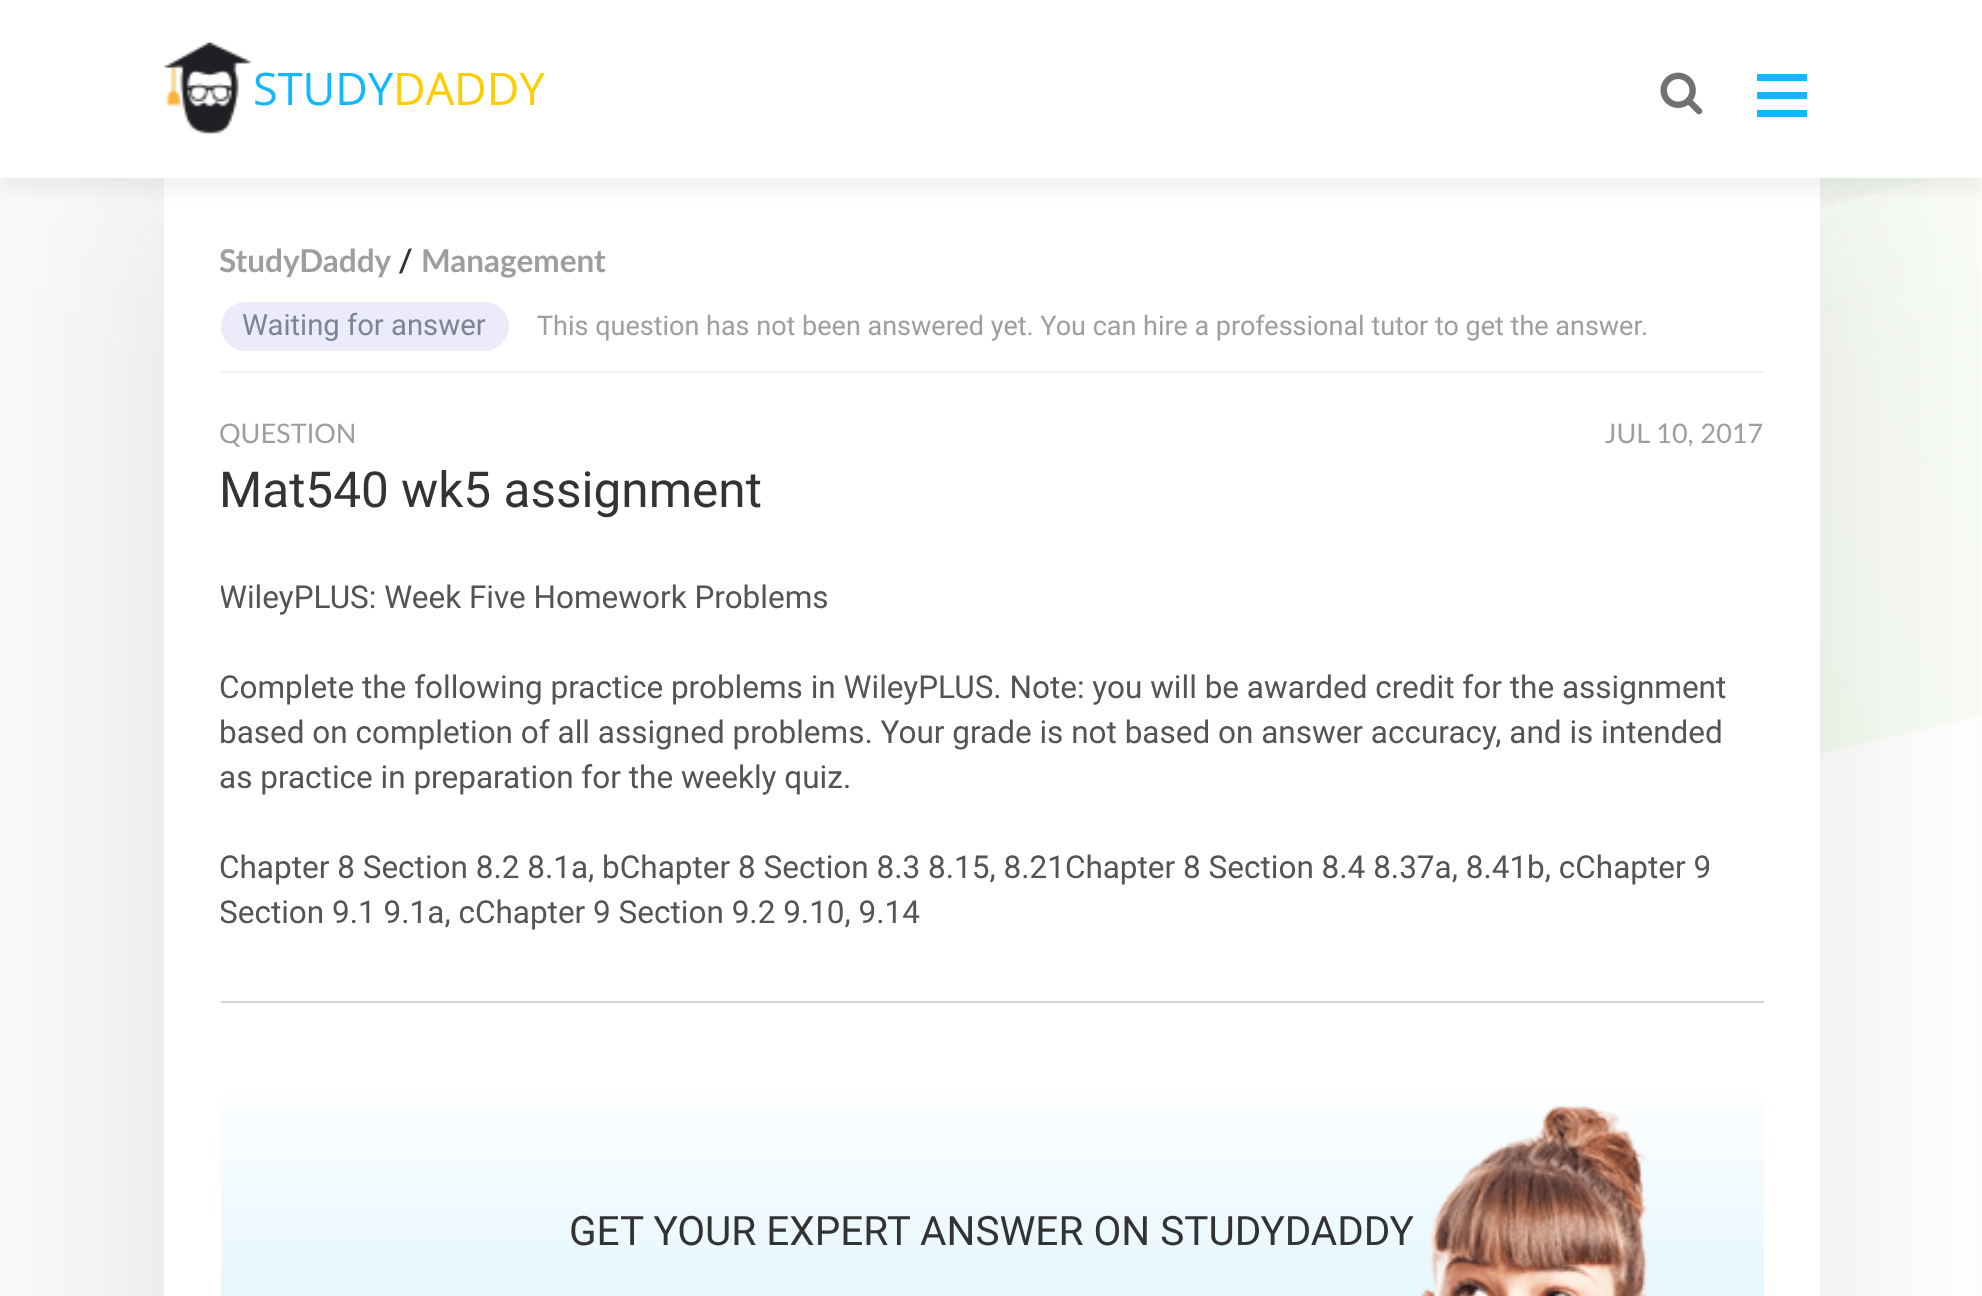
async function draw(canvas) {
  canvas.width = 1982
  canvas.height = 1296
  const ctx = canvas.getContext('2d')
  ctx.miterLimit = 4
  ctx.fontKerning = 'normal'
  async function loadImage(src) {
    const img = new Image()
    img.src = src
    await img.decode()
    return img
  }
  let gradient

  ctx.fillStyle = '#fafafa'
  ctx.fillRect(0, 0, 1982, 1296)
  ctx.drawImage(await loadImage('image2.png'), 1820, 178, 162, 1118)
  ctx.fillStyle = '#0000001a'
  ctx.filter = 'blur(106px)'
  ctx.beginPath()
  ctx.rect(164, 185, 1656, 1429)
  ctx.fill()
  ctx.filter = 'none'
  ctx.fillStyle = '#fff'
  ctx.fillRect(164, 178, 1656, 1118)
  ctx.fillStyle = '#0000000d'
  ctx.filter = 'blur(8px)'
  ctx.beginPath()
  ctx.rect(0, 14, 1982, 177)
  ctx.fill()
  ctx.filter = 'none'
  ctx.fillStyle = '#fff'
  ctx.fillRect(0, 0, 1982, 178)
  ctx.drawImage(await loadImage('image0.png'), 164, 42, 88, 93)
  ctx.font = '45px Open Sans'
  ctx.fillStyle = '#0fb8ff'
  ctx.fillText('STUDY', 253, 105)
  ctx.fillStyle = '#fc0'
  ctx.fillText('DADDY', 393, 105)
  ctx.drawImage(await loadImage('image1.png'), 1660, 72, 43, 43)
  ctx.fillStyle = '#0fb8ff'
  ctx.fillRect(1757, 92, 50, 7)
  ctx.fillRect(1757, 74, 50, 7)
  ctx.fillRect(1757, 110, 50, 7)
  ctx.font = 'bold 31.5px Lato'
  ctx.fillStyle = '#9e9e9e'
  ctx.fillText('StudyDaddy', 219, 272)
  ctx.fillStyle = '#333'
  ctx.fillText('/', 398, 272)
  ctx.fillStyle = '#9e9e9e'
  ctx.fillText('Management', 421, 272)
  ctx.fillStyle = '#ebebf9'
  ctx.beginPath()
  ctx.roundRect(221, 302, 288, 49, 24.5)
  ctx.fill()
  ctx.font = '29.25px Roboto'
  ctx.fillStyle = '#808393'
  ctx.fillText('Waiting for answer', 242, 335)
  ctx.font = '27px Roboto'
  ctx.fillStyle = '#9e9e9e'
  ctx.fillText('This question has not been answered yet. You can hire a professional tutor to get the answer.', 537, 335)
  ctx.fillStyle = '#f1f1f1'
  ctx.fillRect(221, 371, 1543, 2)
  ctx.font = '27px Lato'
  ctx.fillStyle = '#9e9e9e'
  ctx.fillText('QUESTION', 219, 443)
  ctx.fillText('JUL 10, 2017', 1605, 443)
  ctx.font = '49.5px Roboto'
  ctx.fillStyle = '#333'
  ctx.fillText('Mat540 wk5 assignment', 219, 507)
  ctx.save()
  ctx.beginPath()
  ctx.rect(221, 551, 1543, 383)
  ctx.clip()
  ctx.font = '31.5px Roboto'
  ctx.fillStyle = '#545454'
  ctx.fillText('WileyPLUS: Week Five Homework Problems', 219, 608)
  ctx.restore()
  ctx.font = '31.5px Roboto'
  ctx.fillStyle = '#545454'
  ctx.fillText('Complete the following practice problems in WileyPLUS. Note: you will be awarded credit for the assignment', 219, 698)
  ctx.fillText('based on completion of all assigned problems. Your grade is not based on answer accuracy, and is intended', 219, 743)
  ctx.fillText('as practice in preparation for the weekly quiz.', 219, 788)
  ctx.fillText('Chapter 8 Section 8.2 8.1a, bChapter 8 Section 8.3 8.15, 8.21Chapter 8 Section 8.4 8.37a, 8.41b, cChapter 9', 219, 878)
  ctx.save()
  ctx.beginPath()
  ctx.rect(221, 551, 1543, 383)
  ctx.clip()
  ctx.fillText('Section 9.1 9.1a, cChapter 9 Section 9.2 9.10, 9.14', 219, 923)
  ctx.restore()
  ctx.fillStyle = '#d0d4da'
  ctx.fillRect(221, 1001, 1543, 2)
  gradient = ctx.createLinearGradient(992, 1071, 992, 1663)
  gradient.addColorStop(0, '#fff')
  gradient.addColorStop(1, '#bde9fd')
  ctx.fillStyle = gradient
  ctx.fillRect(221, 1093, 1543, 203)
  ctx.font = '40.5px Roboto'
  ctx.fillStyle = '#333'
  ctx.fillText('GET YOUR EXPERT ANSWER ON STUDYDADDY', 569, 1245)
  ctx.drawImage(await loadImage('image3.png'), 1421, 1105, 228, 191)
}

draw(document.querySelector('canvas'))
